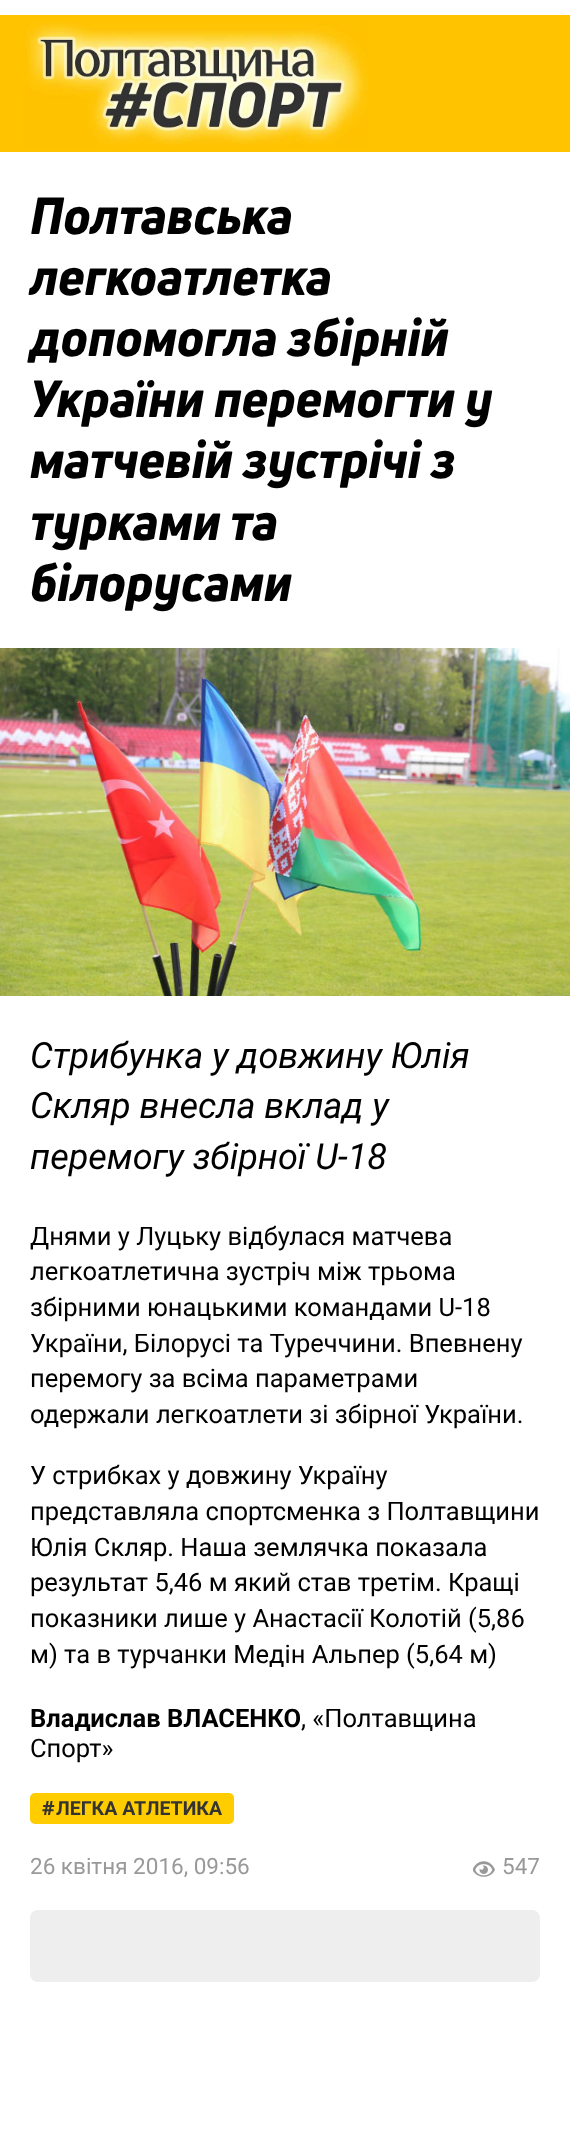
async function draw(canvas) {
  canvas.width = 570
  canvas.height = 2146
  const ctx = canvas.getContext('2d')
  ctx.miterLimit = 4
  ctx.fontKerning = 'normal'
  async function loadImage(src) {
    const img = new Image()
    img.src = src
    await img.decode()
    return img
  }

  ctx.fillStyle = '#fff'
  ctx.fillRect(0, 0, 570, 2146)
  ctx.fillStyle = '#ffc300'
  ctx.fillRect(0, 15, 570, 137)
  ctx.drawImage(await loadImage('image0.png'), 25, 22, 343, 124)
  ctx.font = 'italic 800 51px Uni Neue'
  ctx.fillStyle = '#000'
  ctx.fillText('Полтавська', 30, 234)
  ctx.fillText('легкоатлетка', 30, 295)
  ctx.fillText('допомогла збірній', 30, 356)
  ctx.fillText('України перемогти у', 30, 417)
  ctx.fillText('матчевій зустрічі з', 30, 478)
  ctx.fillText('турками та', 30, 540)
  ctx.fillText('білорусами', 30, 601)
  ctx.drawImage(await loadImage('image1.png'), 0, 648, 570, 348)
  ctx.font = 'italic 36px Roboto'
  ctx.fillText('Стрибунка у довжину Юлія', 30, 1068)
  ctx.fillText('Скляр внесла вклад у', 30, 1118)
  ctx.fillText('перемогу збірної U-18', 30, 1169)
  ctx.font = '25.5px Roboto'
  ctx.fillText('Днями у Луцьку відбулася матчева', 30, 1245)
  ctx.fillText('легкоатлетична зустріч між трьома', 30, 1280)
  ctx.fillText('збірними юнацькими командами U-18', 30, 1316)
  ctx.fillText('України, Білорусі та Туреччини. Впевнену', 30, 1352)
  ctx.fillText('перемогу за всіма параметрами', 30, 1387)
  ctx.fillText('одержали легкоатлети зі збірної України.', 30, 1423)
  ctx.fillText('У стрибках у довжину Україну', 30, 1484)
  ctx.fillText('представляла спортсменка з Полтавщини', 30, 1520)
  ctx.fillText('Юлія Скляр. Наша землячка показала', 30, 1556)
  ctx.fillText('результат 5,46 м який став третім. Кращі', 30, 1591)
  ctx.fillText('показники лише у Анастасії Колотій (5,86', 30, 1627)
  ctx.fillText('м) та в турчанки Медін Альпер (5,64 м)', 30, 1663)
  ctx.font = 'bold 25.5px Roboto'
  ctx.fillText('Владислав ВЛАСЕНКО', 30, 1727)
  ctx.font = '25.5px Roboto'
  ctx.fillText(', «Полтавщина', 301, 1727)
  ctx.fillText('Спорт»', 30, 1757)
  ctx.fillStyle = '#fc0'
  ctx.beginPath()
  ctx.roundRect(30, 1793, 204, 31, 5)
  ctx.fill()
  ctx.font = 'bold 19.5px Noto Sans'
  ctx.fillStyle = '#333'
  ctx.fillText('#', 42, 1815)
  ctx.font = 'bold 19.5px Roboto'
  ctx.fillText('ЛЕГКА АТЛЕТИКА', 56, 1815)
  ctx.font = '22.5px Roboto'
  ctx.fillStyle = '#999'
  ctx.fillText('26 квітня 2016, 09:56', 30, 1874)
  ctx.drawImage(await loadImage('image2.png'), 473, 1861, 22, 16)
  ctx.fillText('547', 502, 1874)
  ctx.fillStyle = '#eee'
  ctx.beginPath()
  ctx.roundRect(30, 1910, 510, 72, 8)
  ctx.fill()
}

draw(document.querySelector('canvas'))
